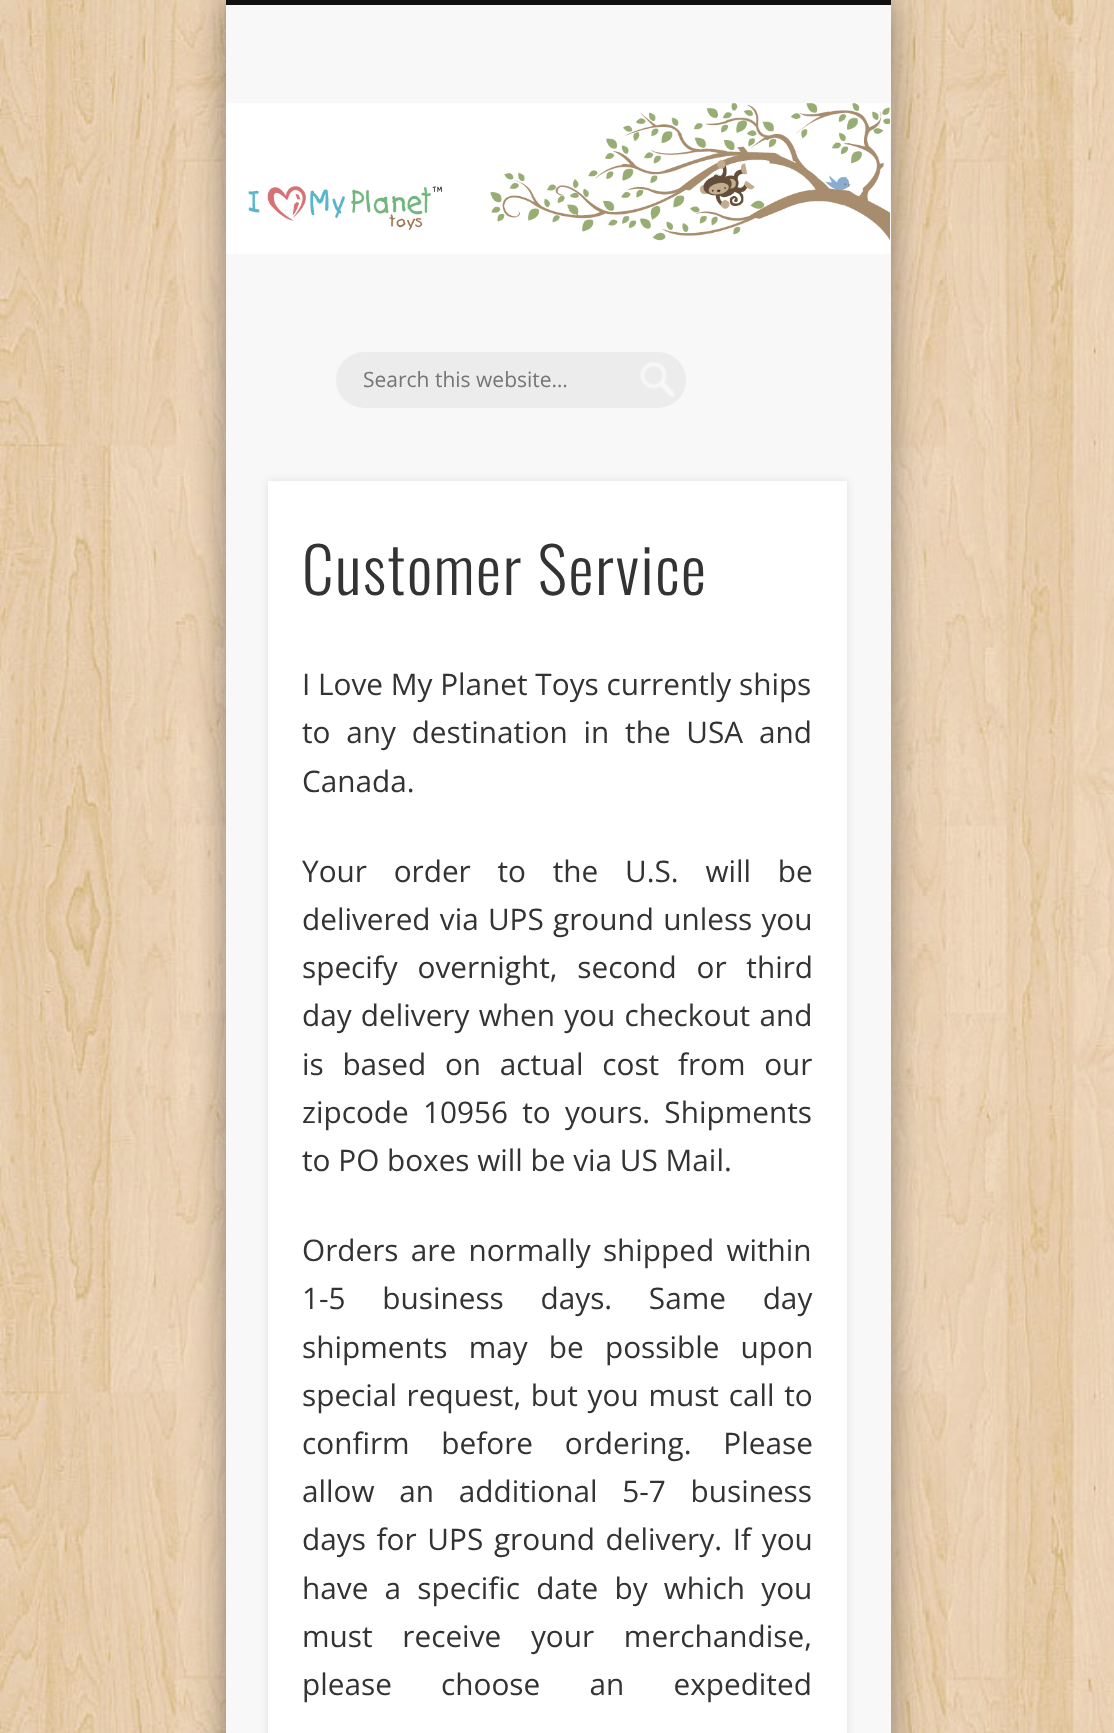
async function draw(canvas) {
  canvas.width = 1114
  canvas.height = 1733
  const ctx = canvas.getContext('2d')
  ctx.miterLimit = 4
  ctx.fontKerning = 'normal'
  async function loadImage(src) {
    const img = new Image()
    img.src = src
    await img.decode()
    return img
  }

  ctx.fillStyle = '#fff'
  ctx.fillRect(0, 0, 1114, 1733)
  ctx.drawImage(await loadImage('image0.png'), 0, 0, 1114, 1733)
  ctx.fillStyle = '#00000066'
  ctx.filter = 'blur(16px)'
  ctx.beginPath()
  ctx.rect(226, 0, 665, 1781)
  ctx.fill()
  ctx.filter = 'none'
  ctx.fillStyle = '#f8f8f8'
  ctx.fillRect(226, 5, 665, 1728)
  ctx.fillStyle = '#111'
  ctx.fillRect(226, 0, 665, 5)
  ctx.drawImage(await loadImage('image1.png'), 225, 103, 665, 151)
  ctx.fillStyle = '#ececec'
  ctx.beginPath()
  ctx.roundRect(336, 352, 350, 56, 28)
  ctx.fill()
  ctx.drawImage(await loadImage('image2.png'), 640, 362, 35, 35)
  ctx.font = '21px Open Sans'
  ctx.fillStyle = '#757575'
  ctx.fillText('Search this website…', 363, 387)
  ctx.fillStyle = '#0000001a'
  ctx.filter = 'blur(4.5px)'
  ctx.beginPath()
  ctx.rect(268, 481, 579, 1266)
  ctx.fill()
  ctx.filter = 'none'
  ctx.fillStyle = '#fff'
  ctx.fillRect(268, 481, 579, 1252)
  ctx.letterSpacing = '1.75px'
  ctx.font = '300 63px Oswald'
  ctx.fillStyle = '#333'
  ctx.fillText('Customer Service', 302, 595)
  ctx.letterSpacing = '0px'
  ctx.font = '29.75px Open Sans'
  ctx.fillText('I Love My Planet Toys currently ships', 302, 695)
  ctx.wordSpacing = '8px'
  ctx.fillText('to any destination in the USA and', 302, 743)
  ctx.wordSpacing = '0px'
  ctx.fillText('Canada.', 302, 792)
  ctx.wordSpacing = '19px'
  ctx.fillText('Your order to the U.S. will be', 302, 882)
  ctx.wordSpacing = '1.5px'
  ctx.fillText('delivered via UPS ground unless you', 302, 930)
  ctx.wordSpacing = '12px'
  ctx.fillText('specify overnight, second or third', 302, 978)
  ctx.wordSpacing = '1.5px'
  ctx.fillText('day delivery when you checkout and', 302, 1026)
  ctx.wordSpacing = '11px'
  ctx.fillText('is based on actual cost from our', 302, 1075)
  ctx.wordSpacing = '6.5px'
  ctx.fillText('zipcode 10956 to yours. Shipments', 302, 1123)
  ctx.wordSpacing = '0px'
  ctx.fillText('to PO boxes will be via US Mail.', 302, 1171)
  ctx.wordSpacing = '4.5px'
  ctx.fillText('Orders are normally shipped within', 302, 1261)
  ctx.wordSpacing = '29px'
  ctx.fillText('1-5 business days. Same day', 302, 1309)
  ctx.wordSpacing = '13.5px'
  ctx.fillText('shipments may be possible upon', 302, 1358)
  ctx.wordSpacing = '2px'
  ctx.fillText('special request, but you must call to', 302, 1406)
  ctx.wordSpacing = '24px'
  ctx.fillText('confirm before ordering. Please', 302, 1454)
  ctx.wordSpacing = '17px'
  ctx.fillText('allow an additional 5-7 business', 302, 1502)
  ctx.wordSpacing = '3px'
  ctx.fillText('days for UPS ground delivery. If you', 302, 1550)
  ctx.wordSpacing = '8.5px'
  ctx.fillText('have a specific date by which you', 302, 1599)
  ctx.wordSpacing = '22px'
  ctx.fillText('must receive your merchandise,', 302, 1647)
  ctx.wordSpacing = '41.5px'
  ctx.fillText('please choose an expedited', 302, 1695)
}

draw(document.querySelector('canvas'))
